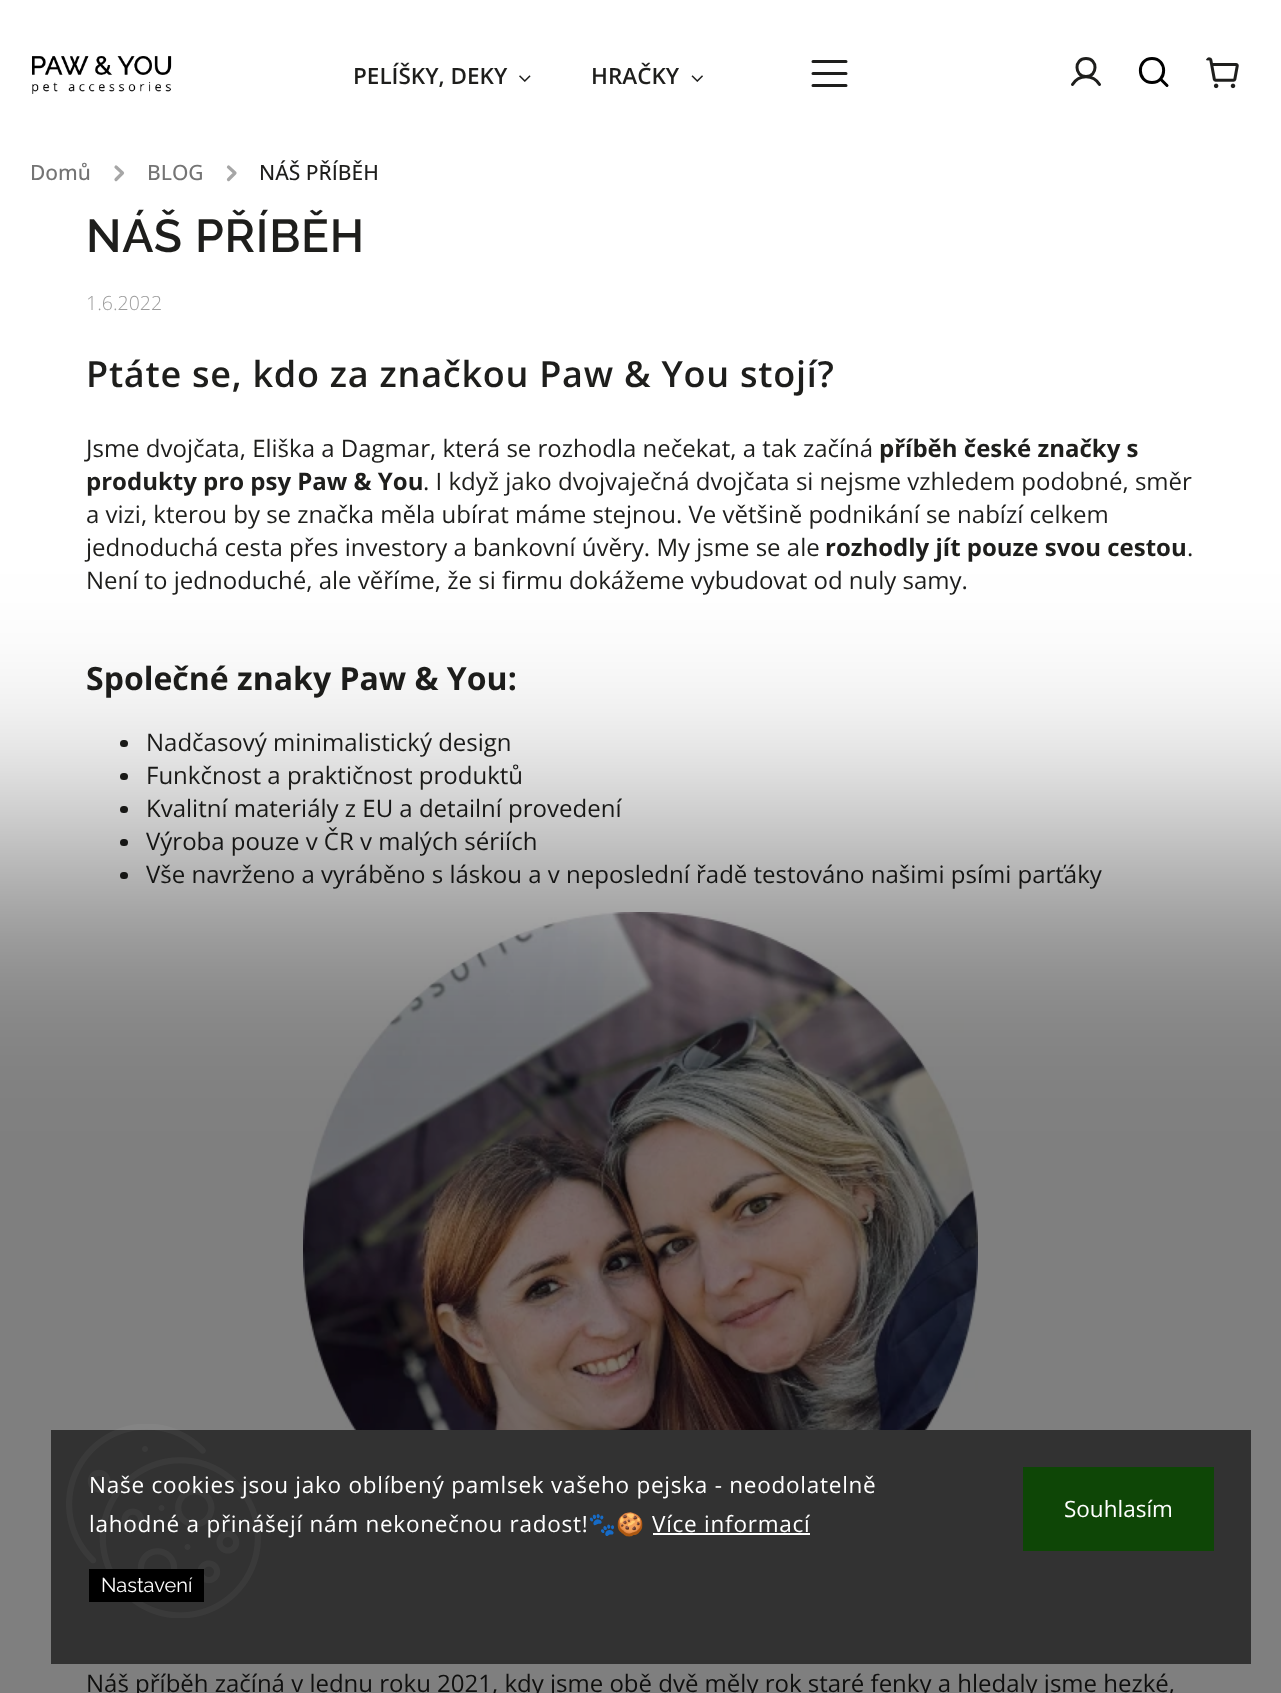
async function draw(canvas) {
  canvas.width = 1281
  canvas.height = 1693
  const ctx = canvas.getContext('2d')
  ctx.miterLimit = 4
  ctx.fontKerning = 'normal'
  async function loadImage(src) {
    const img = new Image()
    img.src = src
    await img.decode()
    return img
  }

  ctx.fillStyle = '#fff'
  ctx.fillRect(0, 0, 1281, 1693)
  ctx.drawImage(await loadImage('image0.png'), 32, 56, 140, 38)
  ctx.beginPath()
  ctx.moveTo(1086, 76.5)
  ctx.bezierCurveTo(1098, 76.5, 1098, 58.5, 1086, 58.5)
  ctx.bezierCurveTo(1074, 58.5, 1074, 76.5, 1086, 76.5)
  ctx.closePath()
  ctx.strokeStyle = '#1e1e1c'
  ctx.lineWidth = 3
  ctx.stroke()
  ctx.beginPath()
  ctx.moveTo(1072.5, 84.5)
  ctx.bezierCurveTo(1078.5, 74, 1093.5, 74, 1099.5, 84.5)
  ctx.lineCap = 'round'
  ctx.lineJoin = 'round'
  ctx.stroke()
  ctx.beginPath()
  ctx.moveTo(1152, 82.5)
  ctx.bezierCurveTo(1167.5, 82.5, 1167.5, 58.5, 1152, 58.5)
  ctx.bezierCurveTo(1136.5, 58.5, 1136.5, 82.5, 1152, 82.5)
  ctx.closePath()
  ctx.moveTo(1167, 85.5)
  ctx.lineTo(1160.5, 79)
  ctx.strokeStyle = '#000'
  ctx.stroke()
  ctx.drawImage(await loadImage('image1.png'), 1206, 57, 33, 32)
  ctx.font = '600 22.5px Open Sans'
  ctx.fillStyle = '#1e1e1c'
  ctx.fillText('PELÍŠKY, DEKY', 353, 84)
  ctx.drawImage(await loadImage('image2.png'), 519, 75, 12, 7)
  ctx.fillText('HRAČKY', 591, 84)
  ctx.drawImage(await loadImage('image3.png'), 691, 75, 12, 7)
  ctx.beginPath()
  ctx.moveTo(813, 73.5)
  ctx.lineTo(846, 73.5)
  ctx.moveTo(813, 61.5)
  ctx.lineTo(846, 61.5)
  ctx.moveTo(813, 85.5)
  ctx.lineTo(846, 85.5)
  ctx.strokeStyle = '#1e1e1c'
  ctx.stroke()
  ctx.font = '500 21px Open Sans'
  ctx.fillStyle = '#747474'
  ctx.fillText('Domů', 30, 180)
  ctx.beginPath()
  ctx.moveTo(116, 179.5)
  ctx.lineTo(122.5, 173)
  ctx.lineTo(116, 167)
  ctx.strokeStyle = '#a6a6a6'
  ctx.lineWidth = 3.2
  ctx.stroke()
  ctx.fillText('BLOG', 147, 180)
  ctx.beginPath()
  ctx.moveTo(228.5, 179.5)
  ctx.lineTo(235, 173)
  ctx.lineTo(228.5, 167)
  ctx.stroke()
  ctx.fillStyle = '#1e1e1c'
  ctx.fillText('NÁŠ PŘÍBĚH', 259, 180)
  ctx.letterSpacing = '0.75px'
  ctx.font = '600 46.25px Raleway'
  ctx.fillText('NÁŠ PŘÍBĚH', 86, 252)
  ctx.letterSpacing = '0px'
  ctx.font = '300 19.5px Open Sans'
  ctx.fillStyle = '#9d9d9d'
  ctx.fillText('1.6.2022', 86, 310)
  ctx.letterSpacing = '0.75px'
  ctx.font = '600 36px Open Sans'
  ctx.fillStyle = '#1e1e1c'
  ctx.fillText('Ptáte se, kdo za značkou Paw & You stojí?', 86, 387)
  ctx.letterSpacing = '0px'
  ctx.font = '24px Open Sans'
  ctx.fillText('Jsme dvojčata, Eliška a Dagmar, která se rozhodla nečekat, a tak začíná', 86, 457)
  ctx.font = 'bold 24px Open Sans'
  ctx.fillText('příběh české značky s', 879, 457)
  ctx.fillText('produkty pro psy Paw & You', 86, 490)
  ctx.font = '24px Open Sans'
  ctx.fillText('. I když jako dvojvaječná dvojčata si nejsme vzhledem podobné, směr', 423, 490)
  ctx.fillText('a vizi, kterou by se značka měla ubírat máme stejnou. Ve většině podnikání se nabízí celkem', 86, 523)
  ctx.fillText('jednoduchá cesta přes investory a bankovní úvěry. My jsme se ale', 86, 556)
  ctx.font = 'bold 24px Open Sans'
  ctx.fillText('rozhodly jít pouze svou cestou', 825, 556)
  ctx.font = '24px Open Sans'
  ctx.fillText('.', 1187, 556)
  ctx.fillText('Není to jednoduché, ale věříme, že si firmu dokážeme vybudovat od nuly samy.', 86, 589)
  ctx.font = 'bold 32px Open Sans'
  ctx.fillText('Společné znaky Paw & You:', 86, 690)
  ctx.beginPath()
  ctx.roundRect(120, 740, 8, 7, 3.5)
  ctx.fill()
  ctx.font = '24px Open Sans'
  ctx.fillText('Nadčasový minimalistický design', 146, 751)
  ctx.beginPath()
  ctx.roundRect(120, 773, 8, 7, 3.5)
  ctx.fill()
  ctx.fillText('Funkčnost a praktičnost produktů', 146, 784)
  ctx.beginPath()
  ctx.roundRect(120, 806, 8, 7, 3.5)
  ctx.fill()
  ctx.fillText('Kvalitní materiály z EU a detailní provedení', 146, 817)
  ctx.beginPath()
  ctx.roundRect(120, 839, 8, 7, 3.5)
  ctx.fill()
  ctx.fillText('Výroba pouze v ČR v malých sériích', 146, 850)
  ctx.beginPath()
  ctx.roundRect(120, 872, 8, 7, 3.5)
  ctx.fill()
  ctx.fillText('Vše navrženo a vyráběno s láskou a v neposlední řadě testováno našimi psími parťáky', 146, 883)
  ctx.drawImage(await loadImage('image4.png'), 303, 912, 675, 518)
  ctx.fillText('Náš příběh začíná v lednu roku 2021, kdy jsme obě dvě měly rok staré fenky a hledaly jsme hezké,', 86, 1692)
  ctx.fillStyle = '#00000080'
  ctx.filter = 'blur(120px)'
  ctx.beginPath()
  ctx.rect(-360, 849, 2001, 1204)
  ctx.fill()
  ctx.filter = 'none'
  ctx.fillStyle = '#323232'
  ctx.fillRect(51, 1430, 1200, 234)
  ctx.drawImage(await loadImage('image5.png'), 66, 1424, 195, 194)
  ctx.letterSpacing = '0.75px'
  ctx.font = '22.5px Open Sans'
  ctx.fillStyle = '#fff'
  ctx.fillText('Naše cookies jsou jako oblíbený pamlsek vašeho pejska - neodolatelně', 89, 1493)
  ctx.fillText('lahodné a přinášejí nám nekonečnou radost!', 89, 1532)
  ctx.font = '22.5px Noto Color Emoji'
  ctx.fillText('🐾🍪', 588, 1532)
  ctx.font = '22.5px Open Sans'
  ctx.fillText('Více informací', 652, 1532)
  ctx.fillRect(653, 1533, 157, 2)
  ctx.fillStyle = '#000'
  ctx.fillRect(89, 1569, 115, 33)
  ctx.letterSpacing = '0px'
  ctx.font = '20px Raleway'
  ctx.fillStyle = '#fff'
  ctx.fillText('Nastavení', 101, 1592)
  ctx.fillStyle = '#0e4606'
  ctx.fillRect(1023, 1467, 191, 84)
  ctx.font = '22.5px Open Sans'
  ctx.fillStyle = '#fff'
  ctx.fillText('Souhlasím', 1064, 1517)
}

draw(document.querySelector('canvas'))
